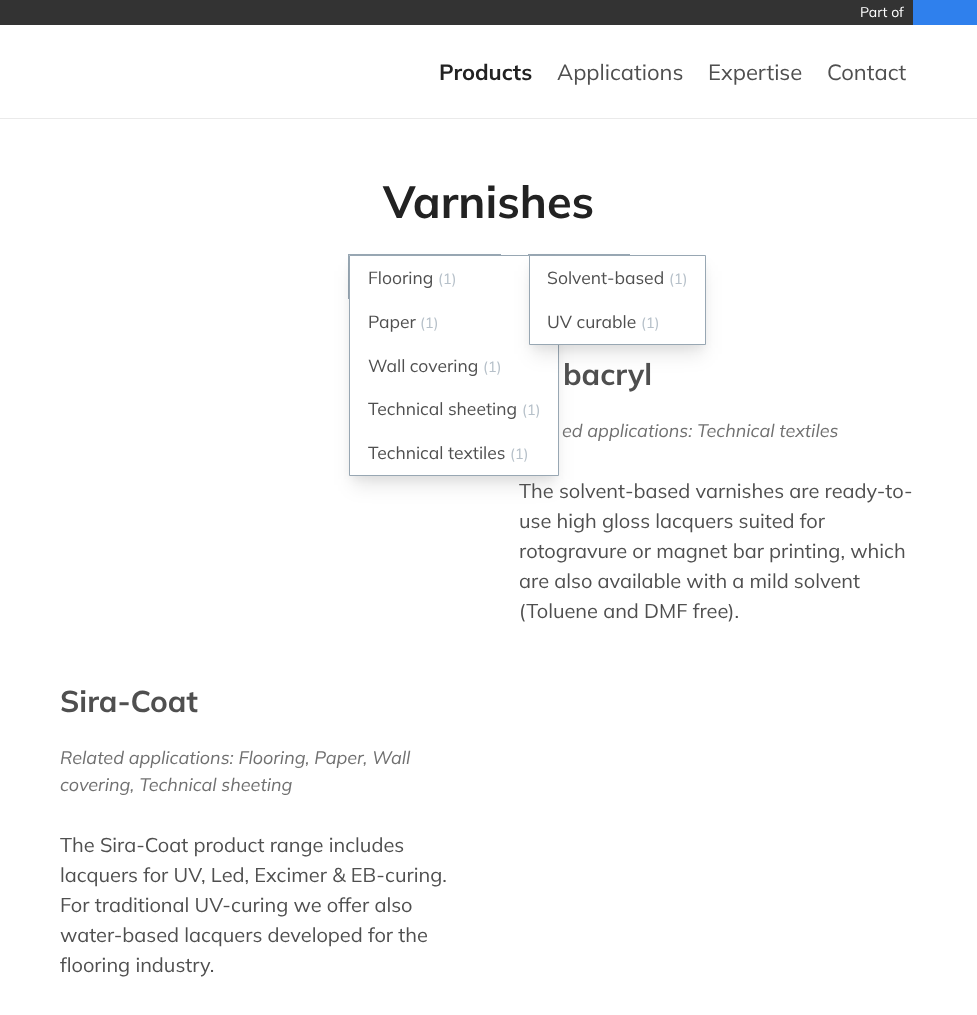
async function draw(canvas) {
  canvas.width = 977
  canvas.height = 1015
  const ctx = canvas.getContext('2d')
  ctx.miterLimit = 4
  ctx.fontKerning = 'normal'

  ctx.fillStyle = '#fff'
  ctx.fillRect(0, 0, 977, 1015)
  ctx.fillStyle = '#333'
  ctx.fillRect(0, 0, 913, 25)
  ctx.font = '14px Mulish'
  ctx.fillStyle = '#fff'
  ctx.fillText('Part of', 860, 17)
  ctx.fillStyle = '#2f80ed'
  ctx.fillRect(913, 0, 64, 25)
  ctx.fillStyle = '#eaeaea'
  ctx.fillRect(0, 118, 977, 1)
  ctx.font = 'bold 22px Mulish'
  ctx.fillStyle = '#222'
  ctx.fillText('Products', 439, 80)
  ctx.font = '22px Mulish'
  ctx.fillStyle = '#4f4f4f'
  ctx.fillText('Applications', 557, 80)
  ctx.fillText('Expertise', 708, 80)
  ctx.fillText('Contact', 827, 80)
  ctx.font = 'bold 45px Mulish'
  ctx.fillStyle = '#222'
  ctx.fillText('Varnishes', 383, 218)
  ctx.strokeStyle = '#98a7b3'
  ctx.strokeRect(348.5, 254.5, 152, 44)
  ctx.strokeRect(528.5, 254.5, 101, 44)
  ctx.fillStyle = '#0000000d'
  ctx.filter = 'blur(4px)'
  ctx.beginPath()
  ctx.rect(351, 263, 205, 216)
  ctx.fill()
  ctx.filter = 'none'
  ctx.fillStyle = '#0000001a'
  ctx.filter = 'blur(9.5px)'
  ctx.beginPath()
  ctx.rect(353, 271, 202, 214)
  ctx.fill()
  ctx.filter = 'none'
  ctx.fillStyle = '#fff'
  ctx.beginPath()
  ctx.rect(349.5, 255.5, 209, 220)
  ctx.fill()
  ctx.stroke()
  ctx.font = '17.5px Mulish'
  ctx.fillStyle = '#4f4f4f'
  ctx.fillText('Flooring', 368, 284)
  ctx.font = '15px Mulish'
  ctx.fillStyle = '#b6c0c9'
  ctx.fillText('(1)', 438, 284)
  ctx.font = '17.5px Mulish'
  ctx.fillStyle = '#4f4f4f'
  ctx.fillText('Paper', 368, 328)
  ctx.font = '15px Mulish'
  ctx.fillStyle = '#b6c0c9'
  ctx.fillText('(1)', 420, 328)
  ctx.font = '17.5px Mulish'
  ctx.fillStyle = '#4f4f4f'
  ctx.fillText('Wall covering', 368, 372)
  ctx.font = '15px Mulish'
  ctx.fillStyle = '#b6c0c9'
  ctx.fillText('(1)', 483, 372)
  ctx.font = '17.5px Mulish'
  ctx.fillStyle = '#4f4f4f'
  ctx.fillText('Technical sheeting', 368, 415)
  ctx.font = '15px Mulish'
  ctx.fillStyle = '#b6c0c9'
  ctx.fillText('(1)', 522, 415)
  ctx.font = '17.5px Mulish'
  ctx.fillStyle = '#4f4f4f'
  ctx.fillText('Technical textiles', 368, 459)
  ctx.font = '15px Mulish'
  ctx.fillStyle = '#b6c0c9'
  ctx.fillText('(1)', 510, 459)
  ctx.fillStyle = '#0000000d'
  ctx.filter = 'blur(4px)'
  ctx.beginPath()
  ctx.rect(531, 263, 173, 85)
  ctx.fill()
  ctx.filter = 'none'
  ctx.fillStyle = '#0000001a'
  ctx.filter = 'blur(9.5px)'
  ctx.beginPath()
  ctx.rect(533, 271, 170, 83)
  ctx.fill()
  ctx.filter = 'none'
  ctx.fillStyle = '#fff'
  ctx.beginPath()
  ctx.rect(529.5, 255.5, 176, 89)
  ctx.fill()
  ctx.stroke()
  ctx.font = '17.5px Mulish'
  ctx.fillStyle = '#4f4f4f'
  ctx.fillText('Solvent-based', 547, 284)
  ctx.font = '15px Mulish'
  ctx.fillStyle = '#b6c0c9'
  ctx.fillText('(1)', 669, 284)
  ctx.font = '17.5px Mulish'
  ctx.fillStyle = '#4f4f4f'
  ctx.fillText('UV curable', 547, 328)
  ctx.font = '15px Mulish'
  ctx.fillStyle = '#b6c0c9'
  ctx.fillText('(1)', 641, 328)
  ctx.font = 'bold 30px Mulish'
  ctx.fillStyle = '#4f4f4f'
  ctx.fillText('bacryl', 563, 385)
  ctx.font = 'italic 18px Mulish'
  ctx.fillStyle = '#707070'
  ctx.fillText('ed applications: Technical textiles', 562, 437)
  ctx.font = '20px Mulish'
  ctx.fillStyle = '#4f4f4f'
  ctx.fillText('The solvent-based varnishes are ready-to-', 519, 498)
  ctx.fillText('use high gloss lacquers suited for', 519, 528)
  ctx.fillText('rotogravure or magnet bar printing, which', 519, 558)
  ctx.fillText('are also available with a mild solvent', 519, 588)
  ctx.fillText('(Toluene and DMF free).', 519, 618)
  ctx.font = 'bold 30px Mulish'
  ctx.fillText('Sira-Coat', 60, 712)
  ctx.font = 'italic 18px Mulish'
  ctx.fillStyle = '#707070'
  ctx.fillText('Related applications: Flooring, Paper, Wall', 60, 764)
  ctx.fillText('covering, Technical sheeting', 60, 791)
  ctx.font = '20px Mulish'
  ctx.fillStyle = '#4f4f4f'
  ctx.fillText('The Sira-Coat product range includes', 60, 852)
  ctx.fillText('lacquers for UV, Led, Excimer & EB-curing.', 60, 882)
  ctx.fillText('For traditional UV-curing we offer also', 60, 912)
  ctx.fillText('water-based lacquers developed for the', 60, 942)
  ctx.fillText('flooring industry.', 60, 972)
}

draw(document.querySelector('canvas'))
